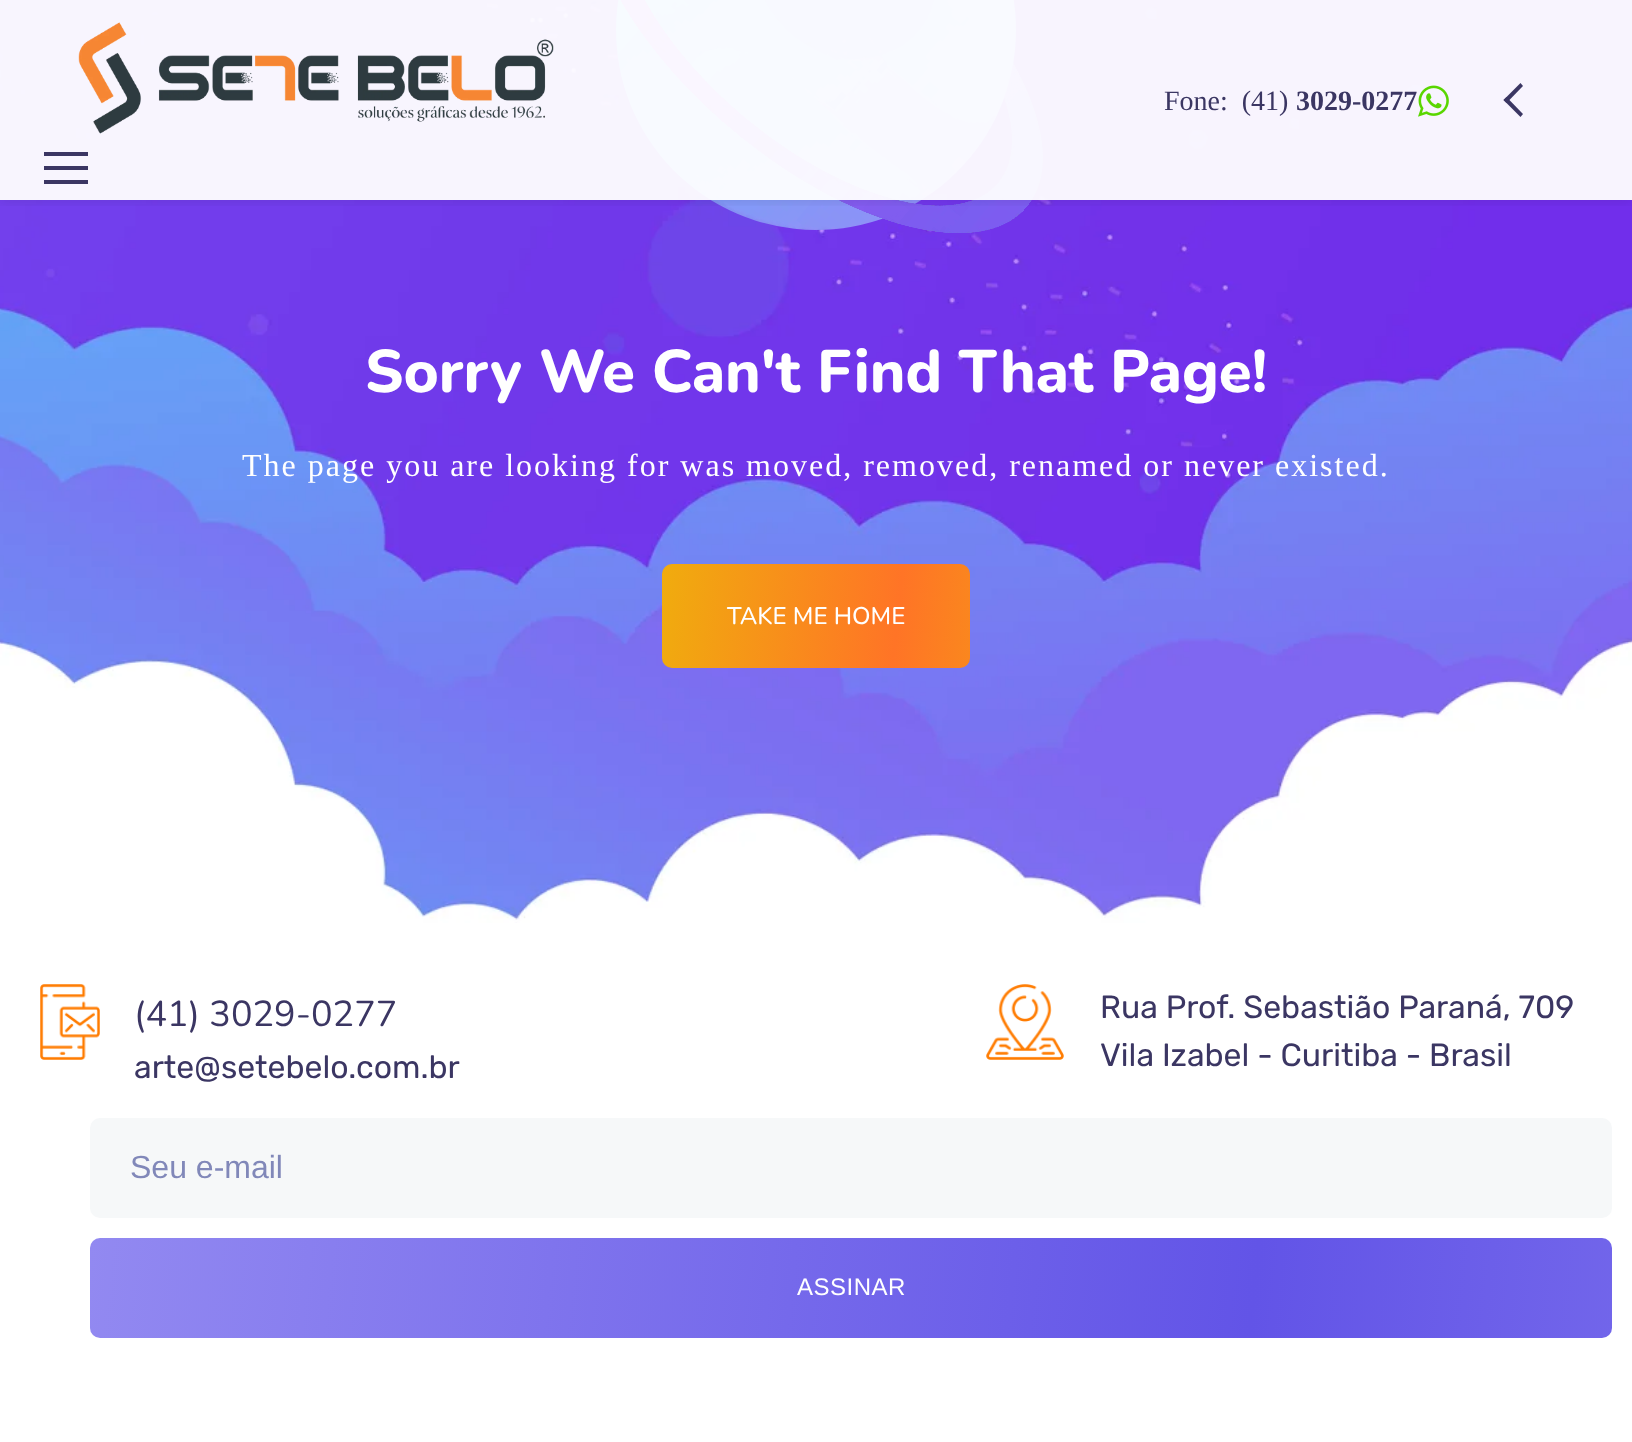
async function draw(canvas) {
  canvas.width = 1632
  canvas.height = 1442
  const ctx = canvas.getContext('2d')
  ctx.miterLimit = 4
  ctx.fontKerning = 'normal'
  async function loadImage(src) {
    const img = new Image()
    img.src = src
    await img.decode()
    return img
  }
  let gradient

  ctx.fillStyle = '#fff'
  ctx.fillRect(0, 0, 1632, 1442)
  ctx.drawImage(await loadImage('image2.png'), 0, 0, 1632, 923)
  ctx.drawImage(await loadImage('image3.png'), 616, 0, 356, 230)
  ctx.drawImage(await loadImage('image4.png'), 621, 0, 422, 233)
  ctx.drawImage(await loadImage('image5.png'), 786, 0, 230, 158)
  ctx.save()
  ctx.beginPath()
  ctx.rect(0, 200, 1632, 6)
  ctx.clip()
  ctx.fillStyle = '#0000001a'
  ctx.filter = 'blur(7px)'
  ctx.beginPath()
  ctx.rect(0, 0, 1632, 200)
  ctx.fill()
  ctx.filter = 'none'
  ctx.restore()
  ctx.fillStyle = '#fffffff2'
  ctx.fillRect(0, 0, 1632, 200)
  ctx.drawImage(await loadImage('image0.png'), 78, 22, 476, 112)
  ctx.fillStyle = '#3b3663'
  ctx.fillRect(44, 166, 44, 4)
  ctx.fillRect(44, 152, 44, 4)
  ctx.fillRect(44, 180, 44, 4)
  ctx.font = '28px Liberation Serif'
  ctx.fillText('Fone:  (41)', 1164, 110)
  ctx.font = 'bold 28px Liberation Serif'
  ctx.fillText('3029-0277', 1296, 110)
  ctx.drawImage(await loadImage('image1.png'), 1418, 85, 31, 32)
  ctx.beginPath()
  ctx.moveTo(1503.5, 100)
  ctx.lineTo(1520.5, 83)
  ctx.lineTo(1523, 86)
  ctx.lineTo(1506.5, 103)
  ctx.closePath()
  ctx.fill()
  ctx.beginPath()
  ctx.moveTo(1506.5, 97)
  ctx.lineTo(1523, 114)
  ctx.lineTo(1520.5, 117)
  ctx.lineTo(1503.5, 100)
  ctx.closePath()
  ctx.fill()
  ctx.font = '800 60px Nunito'
  ctx.fillStyle = '#fff'
  ctx.fillText('Sorry We Can\'t Find That Page!', 365, 392)
  ctx.letterSpacing = '2px'
  ctx.font = '32px Liberation Serif'
  ctx.fillText('The page you are looking for was moved, removed, renamed or never existed.', 242, 476)
  gradient = ctx.createLinearGradient(659, 591, 1127, 641)
  gradient.addColorStop(0, '#f0ac0e')
  gradient.addColorStop(0.51, '#ff7426')
  gradient.addColorStop(1, '#f0ac0e')
  ctx.fillStyle = gradient
  ctx.beginPath()
  ctx.roundRect(662, 564, 308, 104, 10)
  ctx.fill()
  ctx.letterSpacing = '0px'
  ctx.font = '500 24px Nunito'
  ctx.fillStyle = '#fff'
  ctx.fillText('TAKE ME HOME', 727, 624)
  ctx.drawImage(await loadImage('image6.png'), 40, 984, 60, 76)
  ctx.font = '36px Nunito'
  ctx.fillStyle = '#3b3663'
  ctx.fillText('(41) 3029-0277', 134, 1026)
  ctx.font = '32px Rubik'
  ctx.fillText('arte@setebelo.com.br', 134, 1078)
  ctx.drawImage(await loadImage('image7.png'), 986, 984, 78, 76)
  ctx.fillText('Rua Prof. Sebastião Paraná, 709', 1100, 1018)
  ctx.fillText('Vila Izabel - Curitiba - Brasil', 1100, 1066)
  ctx.fillStyle = '#f6f8f9'
  ctx.beginPath()
  ctx.roundRect(90, 1118, 1522, 100, 10)
  ctx.fill()
  ctx.font = '32px Liberation Sans'
  ctx.fillStyle = '#8188b9'
  ctx.fillText('Seu e-mail', 130, 1178)
  gradient = ctx.createLinearGradient(97, 1169, 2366, 1407)
  gradient.addColorStop(0, '#9289f1')
  gradient.addColorStop(0.51, '#6254e7')
  gradient.addColorStop(1, '#9289f1')
  ctx.fillStyle = gradient
  ctx.beginPath()
  ctx.roundRect(90, 1238, 1522, 100, 10)
  ctx.fill()
  ctx.letterSpacing = '0.5px'
  ctx.font = '24px Liberation Sans'
  ctx.fillStyle = '#fff'
  ctx.fillText('ASSINAR', 797, 1295)
}

draw(document.querySelector('canvas'))
